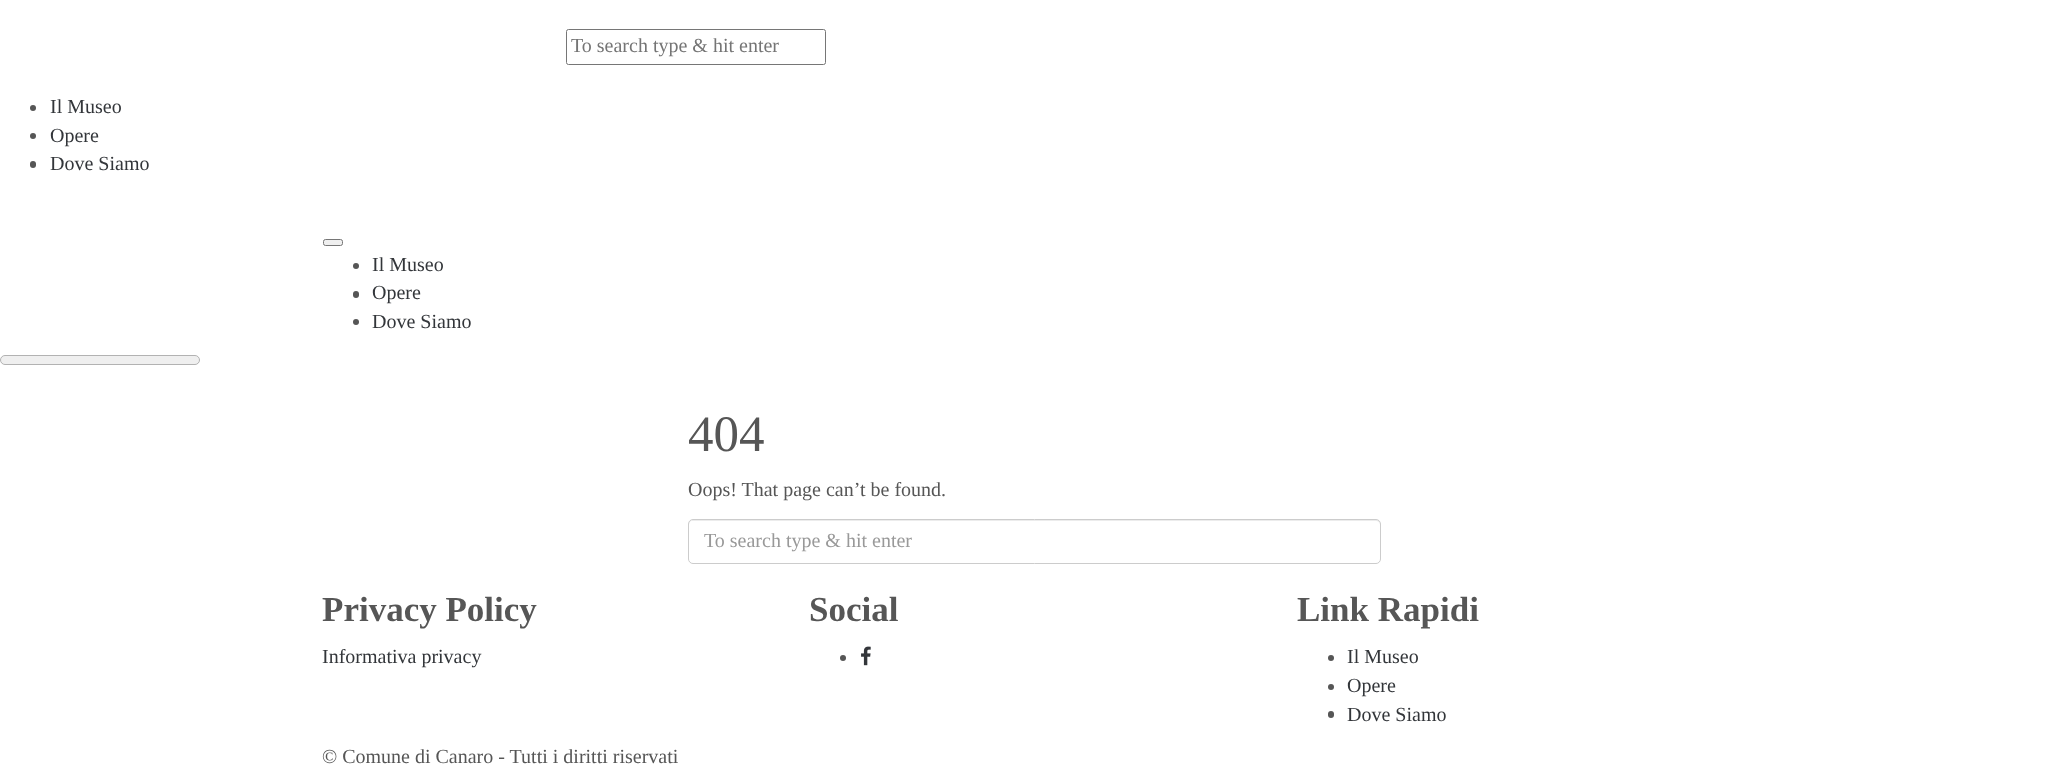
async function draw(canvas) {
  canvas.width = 2068
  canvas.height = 773
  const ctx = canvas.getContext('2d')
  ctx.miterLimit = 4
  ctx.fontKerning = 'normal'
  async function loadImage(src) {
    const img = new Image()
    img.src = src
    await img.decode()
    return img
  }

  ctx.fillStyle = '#fff'
  ctx.fillRect(0, 0, 2068, 773)
  ctx.beginPath()
  ctx.roundRect(566.5, 29.5, 259, 35, 2)
  ctx.strokeStyle = '#767676'
  ctx.stroke()
  ctx.font = '20px Liberation Serif'
  ctx.fillStyle = '#757575'
  ctx.fillText('To search type & hit enter', 571, 52)
  ctx.fillStyle = '#565656'
  ctx.beginPath()
  ctx.arc(33, 108, 3, 0, 2 * Math.PI)
  ctx.fill()
  ctx.fillStyle = '#33363a'
  ctx.fillText('Il Museo', 50, 113)
  ctx.fillStyle = '#565656'
  ctx.beginPath()
  ctx.arc(33, 136, 3, 0, 2 * Math.PI)
  ctx.fill()
  ctx.fillStyle = '#33363a'
  ctx.fillText('Opere', 50, 142)
  ctx.fillStyle = '#565656'
  ctx.beginPath()
  ctx.roundRect(30, 161, 6, 7, 3)
  ctx.fill()
  ctx.fillStyle = '#33363a'
  ctx.fillText('Dove Siamo', 50, 170)
  ctx.fillStyle = '#efefef'
  ctx.beginPath()
  ctx.roundRect(323.5, 239.5, 19, 6, 2)
  ctx.fill()
  ctx.stroke()
  ctx.fillStyle = '#565656'
  ctx.beginPath()
  ctx.arc(356, 266, 3, 0, 2 * Math.PI)
  ctx.fill()
  ctx.fillStyle = '#33363a'
  ctx.fillText('Il Museo', 372, 271)
  ctx.fillStyle = '#565656'
  ctx.beginPath()
  ctx.roundRect(353, 291, 6, 7, 3)
  ctx.fill()
  ctx.fillStyle = '#33363a'
  ctx.fillText('Opere', 372, 299)
  ctx.fillStyle = '#565656'
  ctx.beginPath()
  ctx.arc(356, 322, 3, 0, 2 * Math.PI)
  ctx.fill()
  ctx.fillStyle = '#33363a'
  ctx.fillText('Dove Siamo', 372, 328)
  ctx.fillStyle = '#efefef'
  ctx.beginPath()
  ctx.roundRect(0.5, 355.5, 199, 9, 4.5)
  ctx.fill()
  ctx.strokeStyle = '#b2b2b2'
  ctx.stroke()
  ctx.font = '51px Liberation Serif'
  ctx.fillStyle = '#565656'
  ctx.fillText('404', 688, 451)
  ctx.font = '20px Liberation Serif'
  ctx.fillText('Oops! That page can’t be found.', 688, 496)
  ctx.fillStyle = '#ececec'
  ctx.beginPath()
  ctx.moveTo(692, 521)
  ctx.lineTo(1376, 521)
  ctx.bezierCurveTo(1378, 521, 1380, 523, 1380, 525)
  ctx.bezierCurveTo(1380, 522, 1379, 520, 1376, 520)
  ctx.lineTo(693, 520)
  ctx.lineTo(690, 521)
  ctx.lineTo(689, 522)
  ctx.lineTo(689, 525)
  ctx.bezierCurveTo(689, 523, 690, 521, 692, 521)
  ctx.closePath()
  ctx.fill()
  ctx.beginPath()
  ctx.roundRect(688.5, 519.5, 692, 44, 4.5)
  ctx.strokeStyle = '#ccc'
  ctx.stroke()
  ctx.fillStyle = '#999'
  ctx.fillText('To search type & hit enter', 704, 547)
  ctx.font = 'bold 35px Liberation Serif'
  ctx.fillStyle = '#565656'
  ctx.fillText('Privacy Policy', 322, 621)
  ctx.font = '20px Liberation Serif'
  ctx.fillStyle = '#33363a'
  ctx.fillText('Informativa privacy', 322, 663)
  ctx.font = 'bold 35px Liberation Serif'
  ctx.fillStyle = '#565656'
  ctx.fillText('Social', 809, 621)
  ctx.beginPath()
  ctx.arc(843, 658, 3, 0, 2 * Math.PI)
  ctx.fill()
  ctx.drawImage(await loadImage('image0.png'), 861, 646, 10, 20)
  ctx.fillText('Link Rapidi', 1297, 621)
  ctx.beginPath()
  ctx.arc(1331, 658, 3, 0, 2 * Math.PI)
  ctx.fill()
  ctx.font = '20px Liberation Serif'
  ctx.fillStyle = '#33363a'
  ctx.fillText('Il Museo', 1347, 663)
  ctx.fillStyle = '#565656'
  ctx.beginPath()
  ctx.arc(1331, 687, 3, 0, 2 * Math.PI)
  ctx.fill()
  ctx.fillStyle = '#33363a'
  ctx.fillText('Opere', 1347, 692)
  ctx.fillStyle = '#565656'
  ctx.beginPath()
  ctx.roundRect(1328, 711, 6, 7, 3)
  ctx.fill()
  ctx.fillStyle = '#33363a'
  ctx.fillText('Dove Siamo', 1347, 721)
  ctx.fillStyle = '#565656'
  ctx.fillText('© Comune di Canaro - Tutti i diritti riservati', 322, 763)
}

draw(document.querySelector('canvas'))
